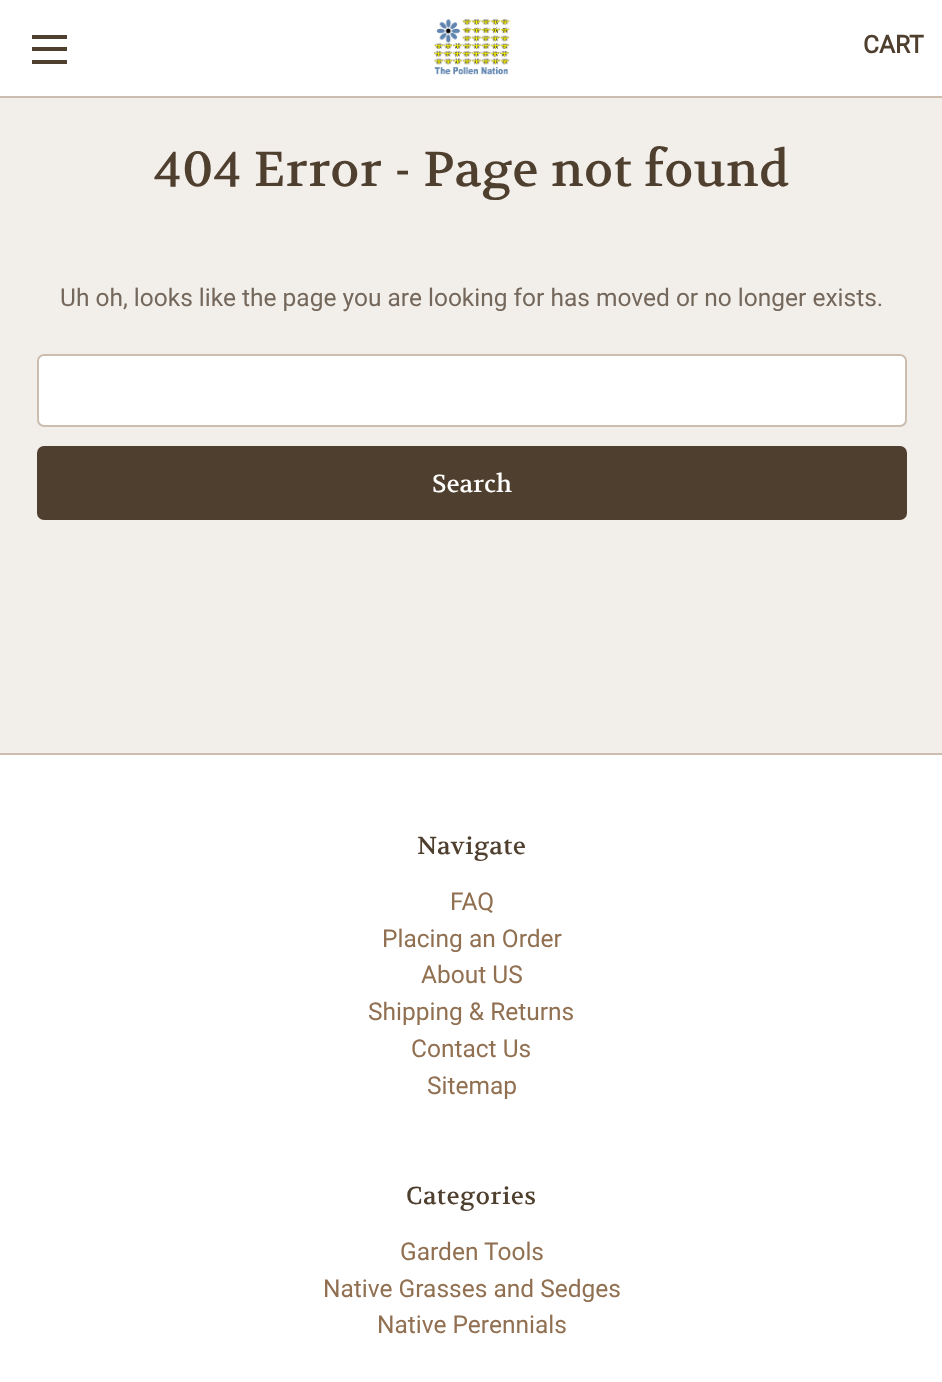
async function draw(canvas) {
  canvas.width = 942
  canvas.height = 1382
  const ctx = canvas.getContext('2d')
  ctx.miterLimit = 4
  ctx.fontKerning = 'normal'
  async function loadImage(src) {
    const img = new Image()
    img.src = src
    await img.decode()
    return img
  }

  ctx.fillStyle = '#f2eee9'
  ctx.fillRect(0, 0, 942, 1382)
  ctx.fillStyle = '#fff'
  ctx.fillRect(0, 0, 942, 96)
  ctx.fillStyle = '#ccbdae'
  ctx.fillRect(0, 96, 942, 2)
  ctx.fillStyle = '#4f3f2f'
  ctx.fillRect(32, 47, 35, 4)
  ctx.fillRect(32, 35, 35, 4)
  ctx.fillRect(32, 60, 35, 4)
  ctx.drawImage(await loadImage('image0.png'), 434, 18, 76, 57)
  ctx.font = 'bold 24.5px Roboto'
  ctx.fillText('CART', 863, 53)
  ctx.letterSpacing = '0.45px'
  ctx.font = '49px Volkhov'
  ctx.fillText('404 Error - Page not found', 154, 186)
  ctx.letterSpacing = '0px'
  ctx.font = '24.5px Roboto'
  ctx.fillStyle = '#74685c'
  ctx.fillText('Uh oh, looks like the page you are looking for has moved or no longer exists.', 60, 306)
  ctx.fillStyle = '#fff'
  ctx.beginPath()
  ctx.roundRect(38, 355, 868, 71, 6)
  ctx.fill()
  ctx.strokeStyle = '#ccbdae'
  ctx.lineWidth = 2
  ctx.stroke()
  ctx.fillStyle = '#4f3f2f'
  ctx.beginPath()
  ctx.roundRect(38, 447, 868, 72, 6)
  ctx.fill()
  ctx.strokeStyle = '#4f3f2f'
  ctx.stroke()
  ctx.font = '24.5px Volkhov'
  ctx.fillStyle = '#fff'
  ctx.fillText('Search', 432, 492)
  ctx.fillRect(0, 755, 942, 627)
  ctx.fillStyle = '#ccbdae'
  ctx.fillRect(0, 753, 942, 2)
  ctx.letterSpacing = '0.45px'
  ctx.fillStyle = '#4f3f2f'
  ctx.fillText('Navigate', 417, 854)
  ctx.letterSpacing = '0px'
  ctx.font = '24.5px Roboto'
  ctx.fillStyle = '#917052'
  ctx.fillText('FAQ', 450, 910)
  ctx.fillText('Placing an Order', 382, 947)
  ctx.fillText('About US', 421, 983)
  ctx.fillText('Shipping & Returns', 368, 1020)
  ctx.fillText('Contact Us', 411, 1057)
  ctx.fillText('Sitemap', 427, 1094)
  ctx.letterSpacing = '0.45px'
  ctx.font = '24.5px Volkhov'
  ctx.fillStyle = '#4f3f2f'
  ctx.fillText('Categories', 406, 1204)
  ctx.letterSpacing = '0px'
  ctx.font = '24.5px Roboto'
  ctx.fillStyle = '#917052'
  ctx.fillText('Garden Tools', 400, 1260)
  ctx.fillText('Native Grasses and Sedges', 323, 1297)
  ctx.fillText('Native Perennials', 377, 1333)
}

draw(document.querySelector('canvas'))
